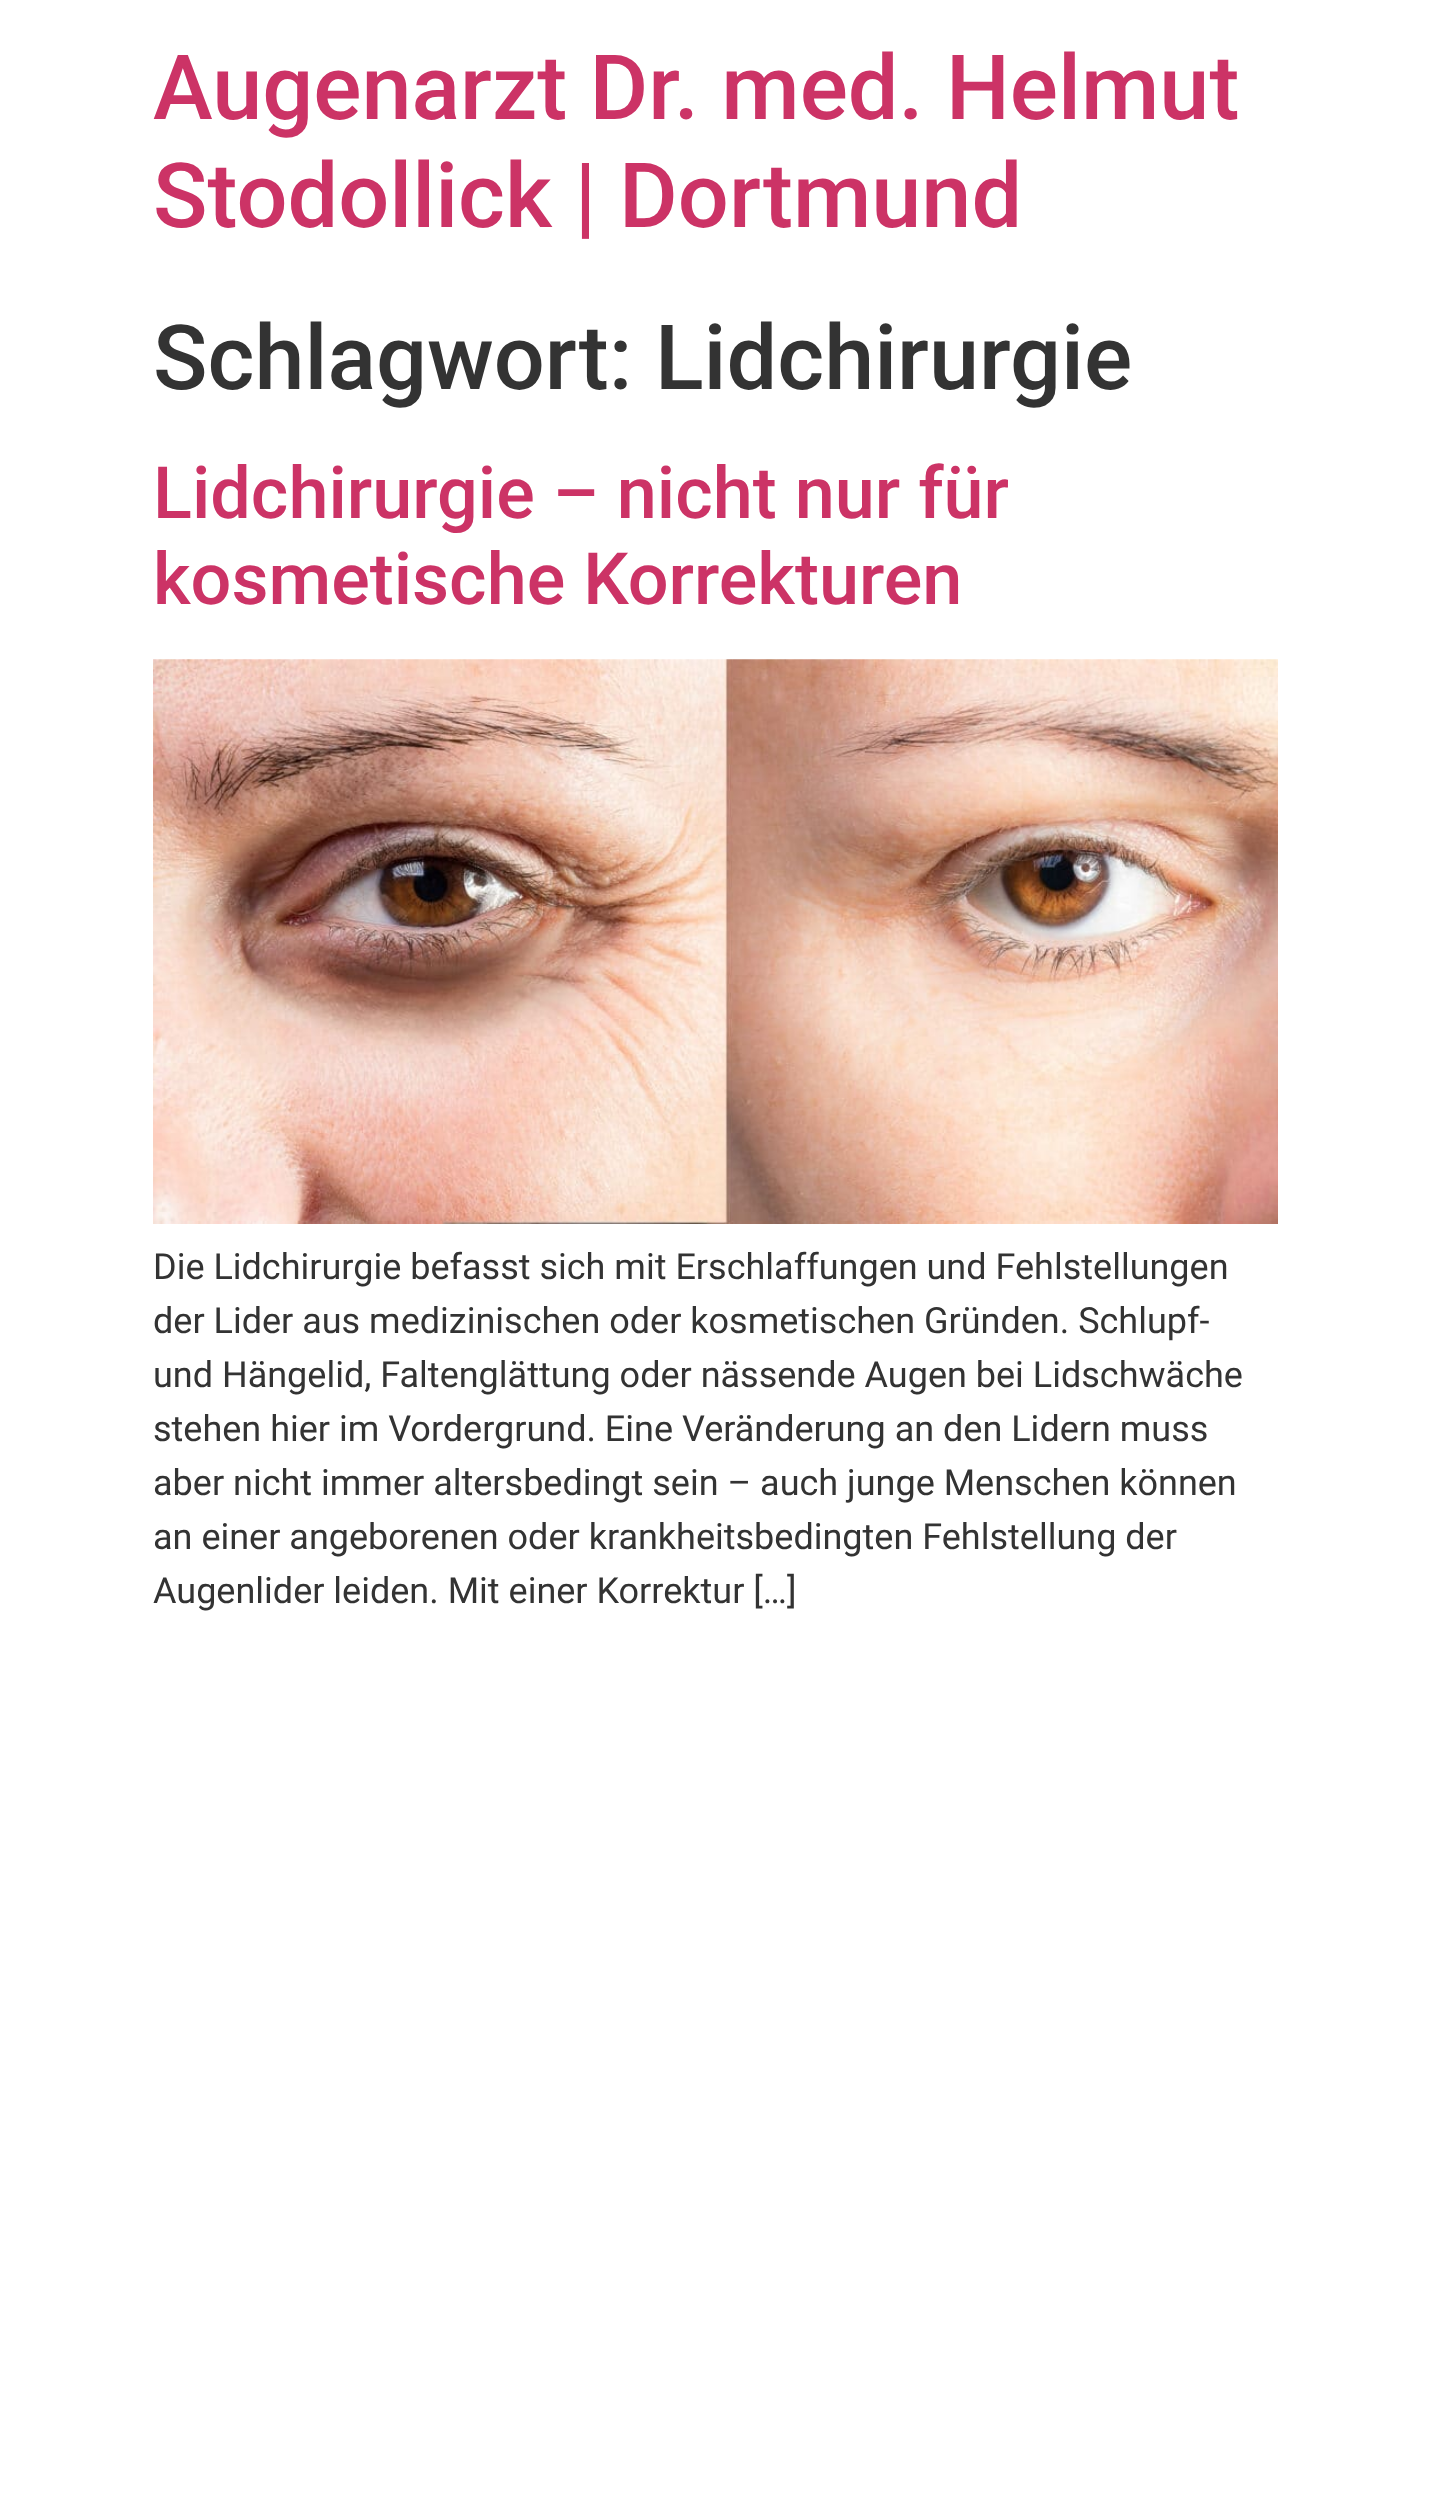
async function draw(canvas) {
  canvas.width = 1429
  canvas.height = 2516
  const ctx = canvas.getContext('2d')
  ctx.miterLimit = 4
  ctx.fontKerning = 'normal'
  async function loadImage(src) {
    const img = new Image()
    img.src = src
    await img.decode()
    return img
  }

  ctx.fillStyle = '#fff'
  ctx.fillRect(0, 0, 1429, 2516)
  ctx.font = '500 90px Roboto'
  ctx.fillStyle = '#c36'
  ctx.fillText('Augenarzt Dr. med. Helmut', 153, 119)
  ctx.fillText('Stodollick | Dortmund', 153, 227)
  ctx.fillStyle = '#333'
  ctx.fillText('Schlagwort: Lidchirurgie', 153, 389)
  ctx.font = '500 72px Roboto'
  ctx.fillStyle = '#c36'
  ctx.fillText('Lidchirurgie – nicht nur für', 153, 518)
  ctx.fillText('kosmetische Korrekturen', 153, 604)
  ctx.drawImage(await loadImage('image0.png'), 153, 659, 1125, 565)
  ctx.font = '36px Roboto'
  ctx.fillStyle = '#333'
  ctx.fillText('Die Lidchirurgie befasst sich mit Erschlaffungen und Fehlstellungen', 153, 1279)
  ctx.fillText('der Lider aus medizinischen oder kosmetischen Gründen. Schlupf-', 153, 1333)
  ctx.fillText('und Hängelid, Faltenglättung oder nässende Augen bei Lidschwäche', 153, 1387)
  ctx.fillText('stehen hier im Vordergrund. Eine Veränderung an den Lidern muss', 153, 1441)
  ctx.fillText('aber nicht immer altersbedingt sein – auch junge Menschen können', 153, 1495)
  ctx.fillText('an einer angeborenen oder krankheitsbedingten Fehlstellung der', 153, 1549)
  ctx.fillText('Augenlider leiden. Mit einer Korrektur […]', 153, 1603)
}

draw(document.querySelector('canvas'))
